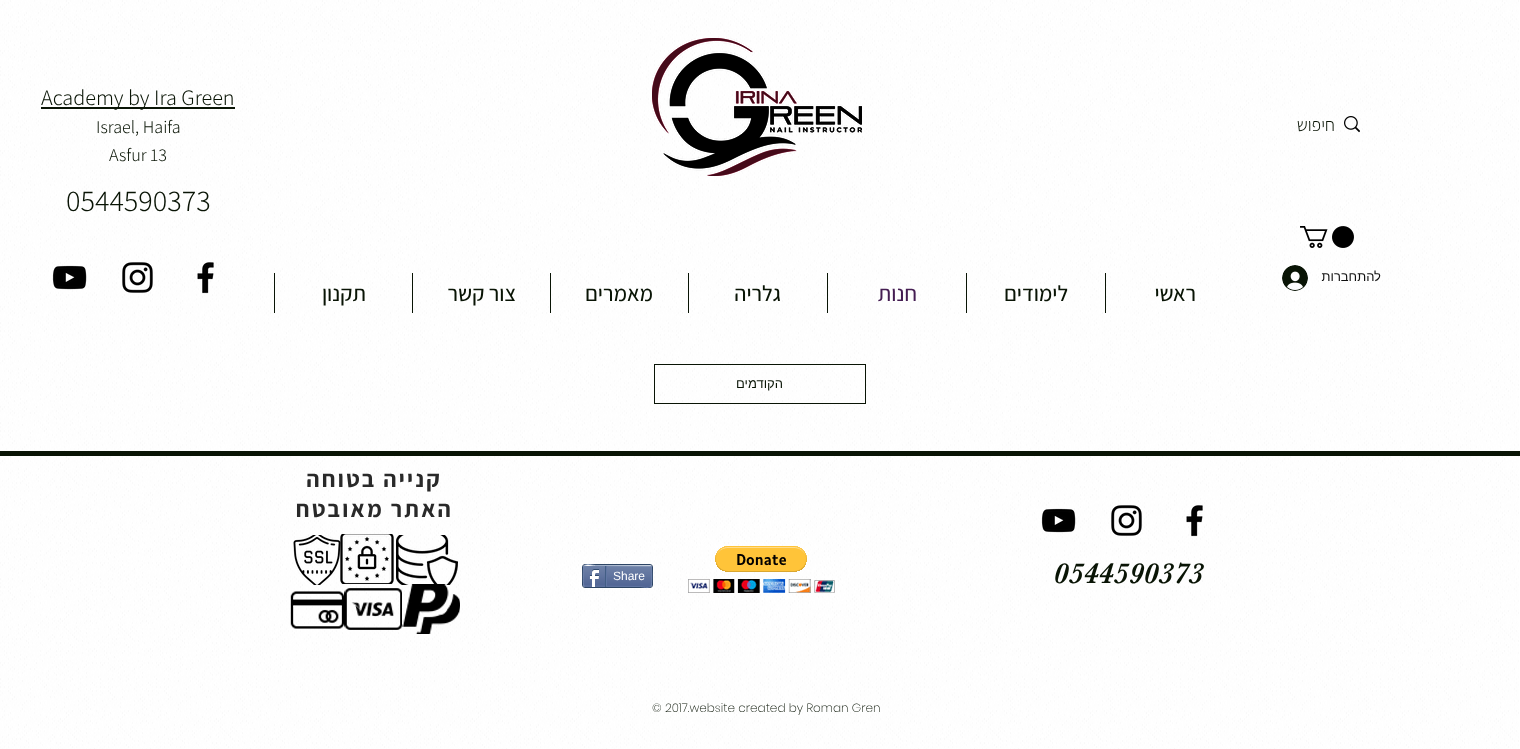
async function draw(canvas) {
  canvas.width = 1520
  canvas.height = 749
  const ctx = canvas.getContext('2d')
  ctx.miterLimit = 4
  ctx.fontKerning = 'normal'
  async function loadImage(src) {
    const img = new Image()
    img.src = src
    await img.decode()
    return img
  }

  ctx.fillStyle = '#fff'
  ctx.fillRect(0, 0, 1520, 749)
  ctx.drawImage(await loadImage('image0.png'), 0, 0, 1519, 749)
  ctx.fillStyle = '#091405'
  ctx.fillRect(41, 107, 194, 2)
  ctx.font = '300 22px Assistant'
  ctx.fillText('Academy by Ira Green', 41, 105)
  ctx.font = '300 18px Assistant'
  ctx.fillText('Israel, Haifa', 96, 133)
  ctx.fillText('Asfur 13', 109, 161)
  ctx.drawImage(await loadImage('image1.png'), 652, 38, 210, 138)
  ctx.direction = 'rtl'
  ctx.fillText('חיפוש', 1335, 131)
  ctx.drawImage(await loadImage('image2.png'), 1344, 116, 16, 17)
  ctx.direction = 'ltr'
  ctx.font = '300 30px Assistant'
  ctx.fillText('0544590373', 66, 211)
  ctx.drawImage(await loadImage('image3.png'), 52, 265, 35, 25)
  ctx.drawImage(await loadImage('image4.png'), 122, 262, 31, 31)
  ctx.drawImage(await loadImage('image5.png'), 197, 262, 17, 32)
  ctx.drawImage(await loadImage('image6.png'), 1300, 226, 54, 22)
  ctx.drawImage(await loadImage('image7.png'), 1282, 265, 26, 26)
  ctx.direction = 'rtl'
  ctx.font = '13px Liberation Sans'
  ctx.fillStyle = '#0f0f0f'
  ctx.fillText('להתחברות', 1381, 281)
  ctx.fillStyle = '#091405'
  ctx.fillRect(274, 273, 1, 40)
  ctx.font = '500 22px Assistant'
  ctx.fillText('תקנון', 366, 301)
  ctx.fillRect(412, 273, 1, 40)
  ctx.fillText('צור קשר', 516, 301)
  ctx.fillRect(550, 273, 1, 40)
  ctx.fillText('מאמרים', 653, 301)
  ctx.fillRect(688, 273, 1, 40)
  ctx.fillText('גלריה', 781, 301)
  ctx.fillRect(827, 273, 1, 40)
  ctx.fillStyle = '#441d52'
  ctx.fillText('חנות', 917, 301)
  ctx.fillStyle = '#091405'
  ctx.fillRect(966, 273, 1, 40)
  ctx.fillText('לימודים', 1068, 301)
  ctx.fillRect(1105, 273, 1, 40)
  ctx.fillText('ראשי', 1196, 301)
  ctx.strokeStyle = '#091405'
  ctx.strokeRect(654.5, 364.5, 211, 39)
  ctx.font = '13px Liberation Sans'
  ctx.fillText('הקודמים', 783, 388)
  ctx.fillRect(0, 451, 1520, 5)
  ctx.letterSpacing = '2.25px'
  ctx.font = 'bold 23px Assistant'
  ctx.fillStyle = '#292929'
  ctx.fillText('קנייה בטוחה', 442, 487)
  ctx.fillText('האתר מאובטח', 453, 517)
  ctx.drawImage(await loadImage('image9.png'), 340, 534, 54, 50)
  ctx.drawImage(await loadImage('image8.png'), 293, 535, 48, 50)
  ctx.drawImage(await loadImage('image13.png'), 402, 584, 58, 50)
  ctx.drawImage(await loadImage('image10.png'), 396, 535, 62, 50)
  ctx.drawImage(await loadImage('image11.png'), 290, 591, 55, 38)
  ctx.drawImage(await loadImage('image12.png'), 344, 588, 58, 42)
  ctx.beginPath()
  ctx.roundRect(582.5, 564.5, 70, 23, 2.5)
  ctx.strokeStyle = '#2d4565'
  ctx.stroke()
  ctx.drawImage(await loadImage('image14.png'), 583, 566, 69, 21)
  ctx.beginPath()
  ctx.moveTo(584, 566)
  ctx.bezierCurveTo(587, 563, 592, 565.5, 596, 565.5)
  ctx.lineTo(651, 566)
  ctx.strokeStyle = '#9aabc6'
  ctx.stroke()
  ctx.beginPath()
  ctx.moveTo(651, 566)
  ctx.bezierCurveTo(652, 566.5, 652, 585.5, 651, 586)
  ctx.strokeStyle = '#6f83ad'
  ctx.stroke()
  ctx.beginPath()
  ctx.moveTo(651, 586)
  ctx.bezierCurveTo(648, 589, 643, 586.5, 639, 586.5)
  ctx.lineTo(584, 586)
  ctx.strokeStyle = '#6176a3'
  ctx.stroke()
  ctx.beginPath()
  ctx.moveTo(584, 586)
  ctx.bezierCurveTo(583, 585.5, 583, 566.5, 584, 566)
  ctx.strokeStyle = '#6f83ad'
  ctx.stroke()
  ctx.drawImage(await loadImage('image15.png'), 589, 569, 10, 18)
  ctx.fillStyle = '#425e85'
  ctx.fillRect(605, 566, 1, 21)
  ctx.letterSpacing = '0px'
  ctx.direction = 'ltr'
  ctx.font = '12px Liberation Sans'
  ctx.fillStyle = '#fff'
  ctx.fillText('Share', 613, 580)
  ctx.fillStyle = '#6176a3'
  ctx.fillRect(606, 566, 1, 20)
  ctx.drawImage(await loadImage('image16.png'), 688, 546, 147, 47)
  ctx.drawImage(await loadImage('image17.png'), 1041, 508, 35, 25)
  ctx.drawImage(await loadImage('image18.png'), 1111, 505, 31, 31)
  ctx.drawImage(await loadImage('image19.png'), 1186, 505, 17, 32)
  ctx.font = '30px "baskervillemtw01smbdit"'
  ctx.fillStyle = '#091405'
  ctx.fillText('0544590373', 1054, 583)
  ctx.font = '200 12px Poppins'
  ctx.fillText('© 2017.website created by Roman Gren', 652, 712)
}

draw(document.querySelector('canvas'))
